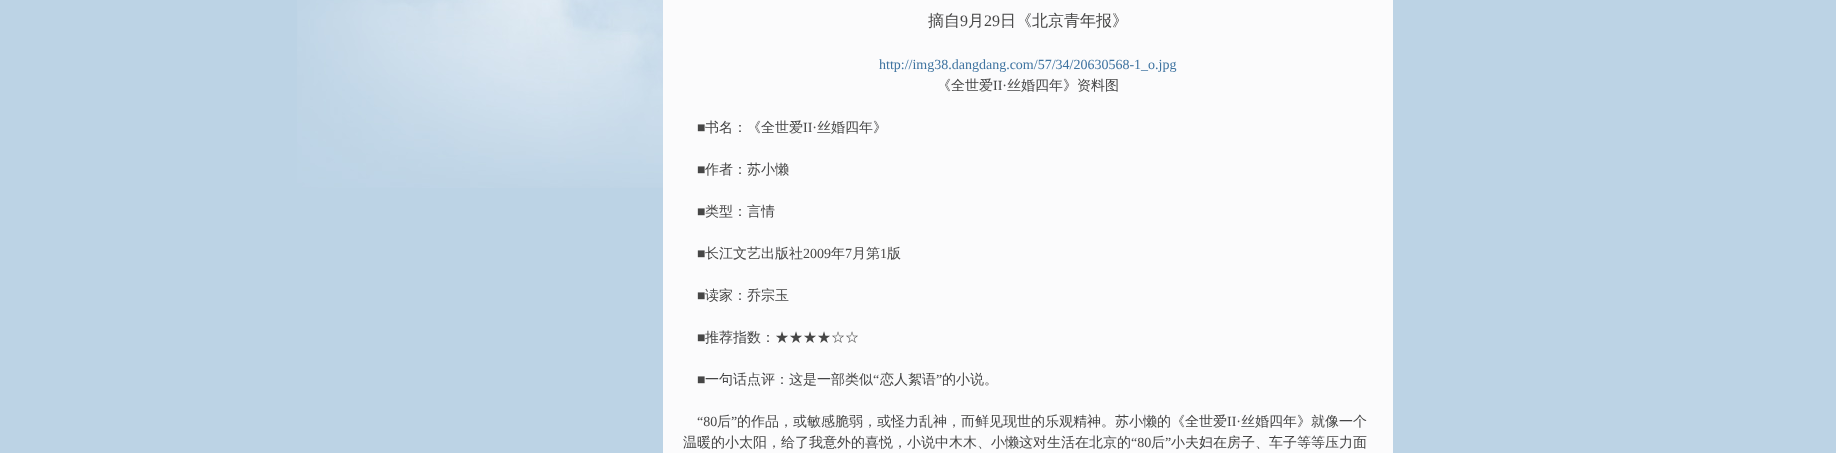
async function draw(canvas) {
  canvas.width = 1836
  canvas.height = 453
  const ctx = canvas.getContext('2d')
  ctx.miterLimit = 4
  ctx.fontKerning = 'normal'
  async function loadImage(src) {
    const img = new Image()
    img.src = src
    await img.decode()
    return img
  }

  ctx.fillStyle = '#bcd3e5'
  ctx.fillRect(0, 0, 1836, 453)
  ctx.drawImage(await loadImage('image0.png'), 297, 0, 366, 188)
  ctx.fillStyle = '#fbfbfc'
  ctx.fillRect(663, 0, 730, 453)
  ctx.font = '500 16px WenQuanYi Zen Hei'
  ctx.fillStyle = '#464646'
  ctx.fillText('摘自', 928, 26)
  ctx.font = '16px Liberation Serif'
  ctx.fillText('9', 960, 26)
  ctx.font = '500 16px WenQuanYi Zen Hei'
  ctx.fillText('月', 968, 26)
  ctx.font = '16px Liberation Serif'
  ctx.fillText('29', 984, 26)
  ctx.font = '500 16px WenQuanYi Zen Hei'
  ctx.fillText('日《北京青年报》', 1000, 26)
  ctx.font = '14px Liberation Serif'
  ctx.fillStyle = '#3e73a0'
  ctx.fillText('http://img38.dangdang.com/57/34/20630568-1_o.jpg', 879, 69)
  ctx.font = '500 14px WenQuanYi Zen Hei'
  ctx.fillStyle = '#464646'
  ctx.fillText('《全世爱', 937, 90)
  ctx.font = '14px Liberation Serif'
  ctx.fillText('II·', 993, 90)
  ctx.font = '500 14px WenQuanYi Zen Hei'
  ctx.fillText('丝婚四年》资料图', 1007, 90)
  ctx.font = '14px Liberation Serif'
  ctx.fillText('■', 697, 132)
  ctx.font = '500 14px WenQuanYi Zen Hei'
  ctx.fillText('书名：《全世爱', 705, 132)
  ctx.font = '14px Liberation Serif'
  ctx.fillText('II·', 803, 132)
  ctx.font = '500 14px WenQuanYi Zen Hei'
  ctx.fillText('丝婚四年》', 817, 132)
  ctx.font = '14px Liberation Serif'
  ctx.fillText('■', 697, 174)
  ctx.font = '500 14px WenQuanYi Zen Hei'
  ctx.fillText('作者：苏小懒', 705, 174)
  ctx.font = '14px Liberation Serif'
  ctx.fillText('■', 697, 216)
  ctx.font = '500 14px WenQuanYi Zen Hei'
  ctx.fillText('类型：言情', 705, 216)
  ctx.font = '14px Liberation Serif'
  ctx.fillText('■', 697, 258)
  ctx.font = '500 14px WenQuanYi Zen Hei'
  ctx.fillText('长江文艺出版社', 705, 258)
  ctx.font = '14px Liberation Serif'
  ctx.fillText('2009', 803, 258)
  ctx.font = '500 14px WenQuanYi Zen Hei'
  ctx.fillText('年', 831, 258)
  ctx.font = '14px Liberation Serif'
  ctx.fillText('7', 845, 258)
  ctx.font = '500 14px WenQuanYi Zen Hei'
  ctx.fillText('月第', 852, 258)
  ctx.font = '14px Liberation Serif'
  ctx.fillText('1', 880, 258)
  ctx.font = '500 14px WenQuanYi Zen Hei'
  ctx.fillText('版', 887, 258)
  ctx.font = '14px Liberation Serif'
  ctx.fillText('■', 697, 300)
  ctx.font = '500 14px WenQuanYi Zen Hei'
  ctx.fillText('读家：乔宗玉', 705, 300)
  ctx.font = '14px Liberation Serif'
  ctx.fillText('■', 697, 342)
  ctx.font = '500 14px WenQuanYi Zen Hei'
  ctx.fillText('推荐指数：★★★★☆☆', 705, 342)
  ctx.font = '14px Liberation Serif'
  ctx.fillText('■', 697, 384)
  ctx.font = '500 14px WenQuanYi Zen Hei'
  ctx.fillText('一句话点评：这是一部类似', 705, 384)
  ctx.font = '14px Liberation Serif'
  ctx.fillText('“', 873, 384)
  ctx.font = '500 14px WenQuanYi Zen Hei'
  ctx.fillText('恋人絮语', 880, 384)
  ctx.font = '14px Liberation Serif'
  ctx.fillText('”', 936, 384)
  ctx.font = '500 14px WenQuanYi Zen Hei'
  ctx.fillText('的小说。', 942, 384)
  ctx.font = '14px Liberation Serif'
  ctx.fillText('“80', 697, 426)
  ctx.font = '500 14px WenQuanYi Zen Hei'
  ctx.fillText('后', 717, 426)
  ctx.font = '14px Liberation Serif'
  ctx.fillText('”', 731, 426)
  ctx.font = '500 14px WenQuanYi Zen Hei'
  ctx.fillText('的作品，或敏感脆弱，或怪力乱神，而鲜见现世的乐观精神。苏小懒的《全世爱', 737, 426)
  ctx.font = '14px Liberation Serif'
  ctx.fillText('II·', 1227, 426)
  ctx.font = '500 14px WenQuanYi Zen Hei'
  ctx.fillText('丝婚四年》就像一个', 1241, 426)
  ctx.fillText('温暖的小太阳，给了我意外的喜悦，小说中木木、小懒这对生活在北京的', 683, 447)
  ctx.font = '14px Liberation Serif'
  ctx.fillText('“80', 1131, 447)
  ctx.font = '500 14px WenQuanYi Zen Hei'
  ctx.fillText('后', 1151, 447)
  ctx.font = '14px Liberation Serif'
  ctx.fillText('”', 1165, 447)
  ctx.font = '500 14px WenQuanYi Zen Hei'
  ctx.fillText('小夫妇在房子、车子等等压力面', 1171, 447)
}

draw(document.querySelector('canvas'))
